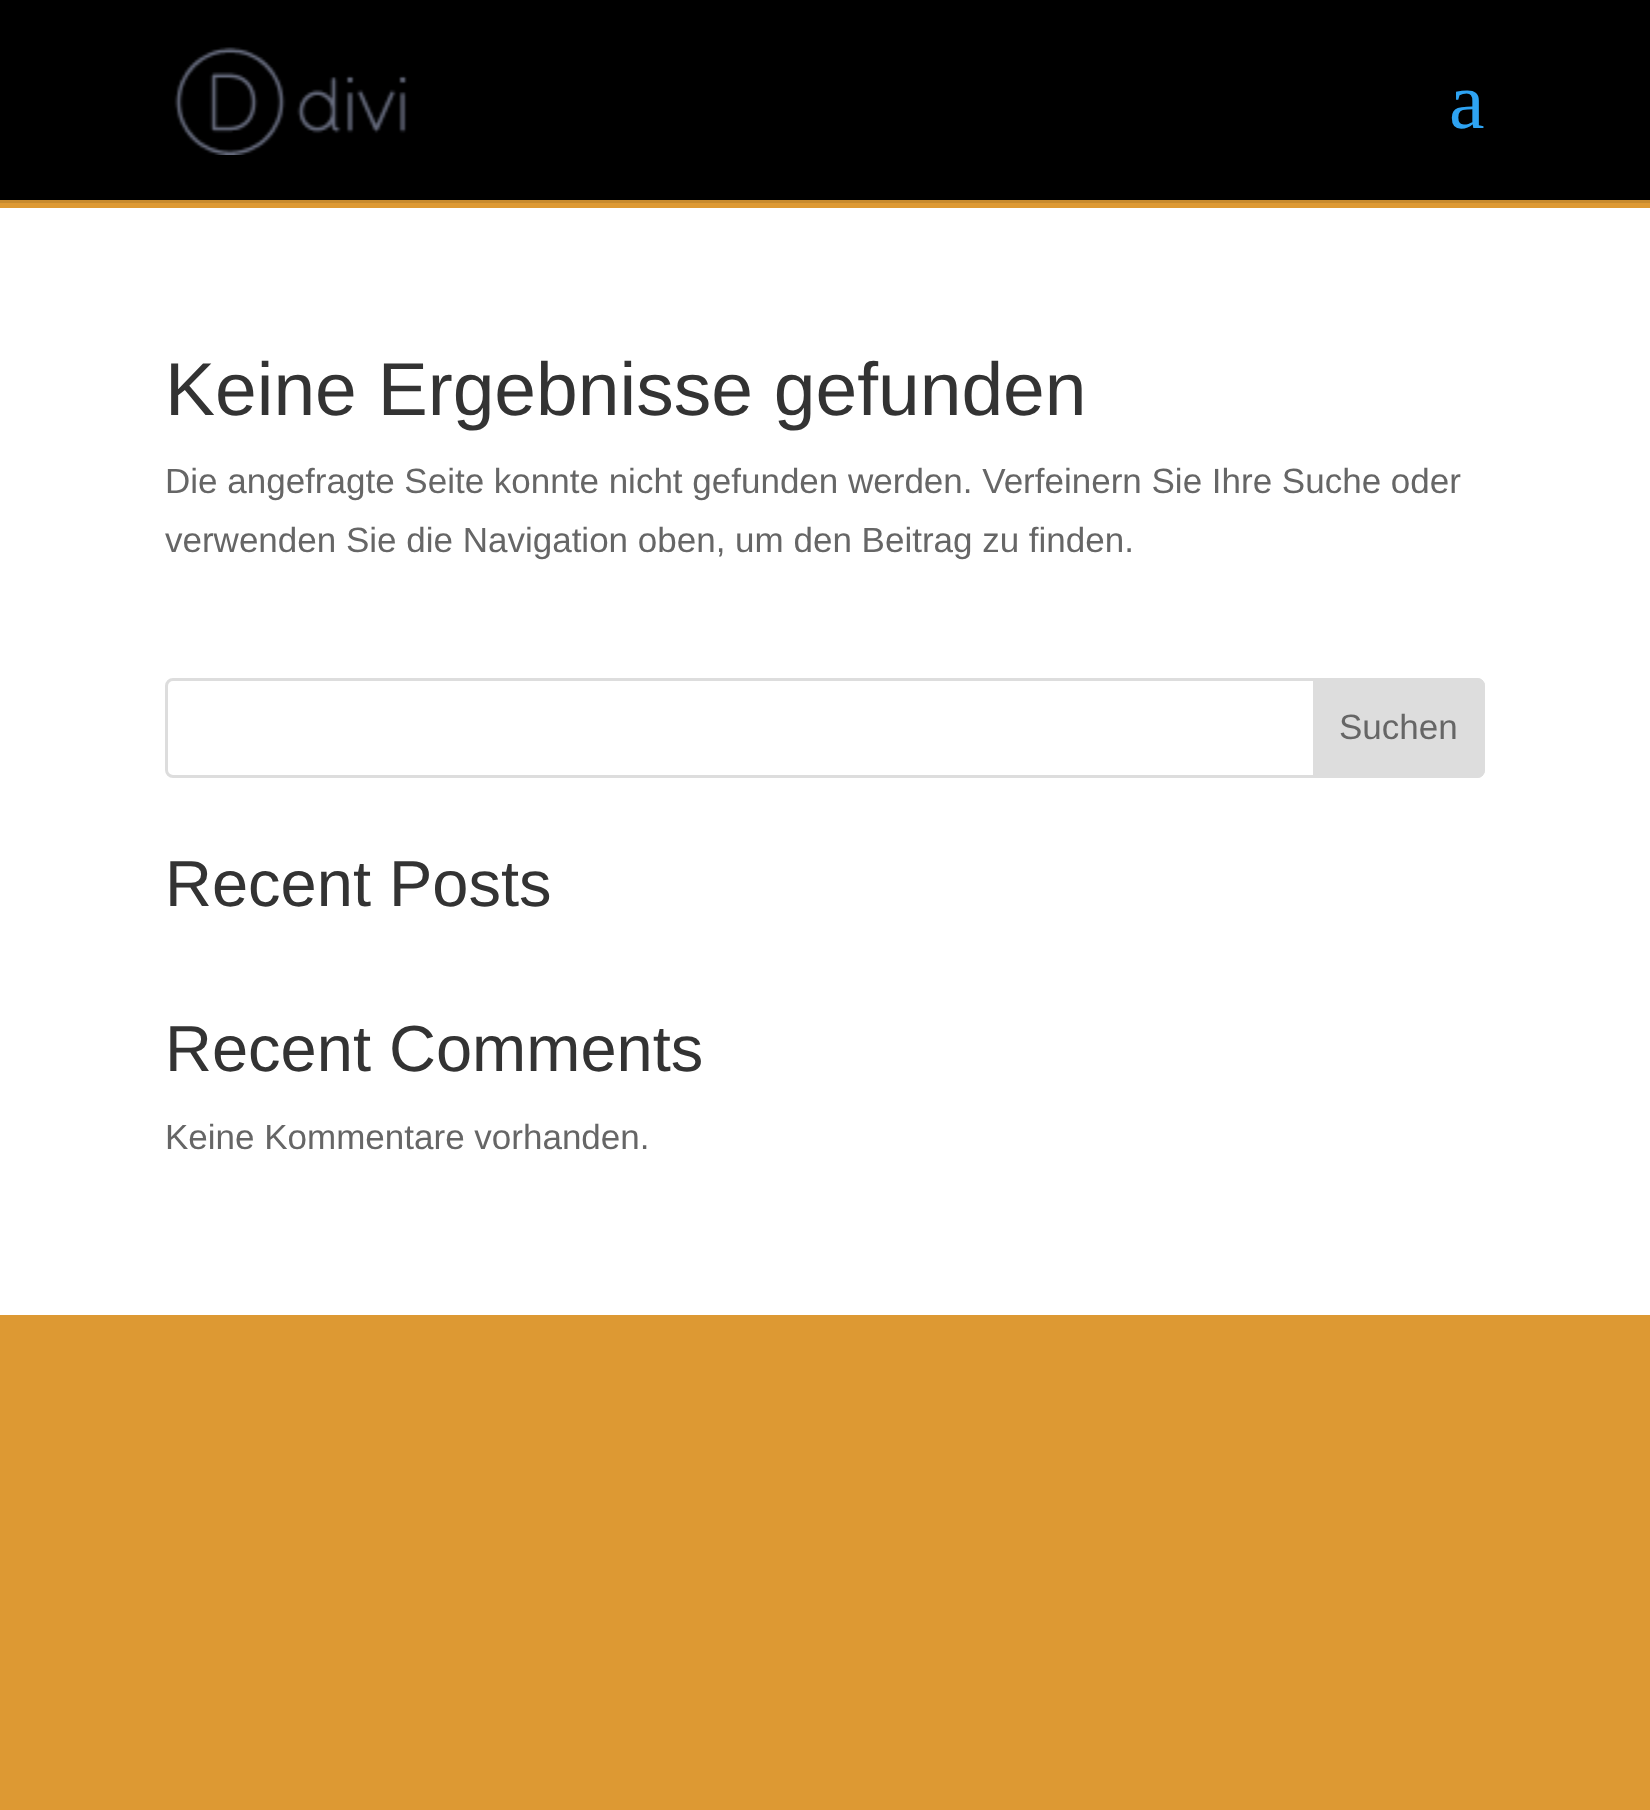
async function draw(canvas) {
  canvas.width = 1650
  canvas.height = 1810
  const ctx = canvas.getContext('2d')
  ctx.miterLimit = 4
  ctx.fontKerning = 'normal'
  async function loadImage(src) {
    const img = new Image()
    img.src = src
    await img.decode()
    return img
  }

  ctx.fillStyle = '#d93'
  ctx.fillRect(0, 0, 1650, 1810)
  ctx.fillStyle = '#c78a2e'
  ctx.fillRect(0, 200, 1650, 3)
  ctx.fillStyle = '#000'
  ctx.fillRect(0, 0, 1650, 200)
  ctx.drawImage(await loadImage('image0.png'), 174, 47, 233, 108)
  ctx.font = '80px Liberation Serif'
  ctx.fillStyle = '#2ea3f2'
  ctx.fillText('a', 1449, 128)
  ctx.fillStyle = '#fff'
  ctx.fillRect(0, 208, 1650, 1107)
  ctx.font = '75px Liberation Sans'
  ctx.fillStyle = '#333'
  ctx.fillText('Keine Ergebnisse gefunden', 165, 415)
  ctx.font = '35px Liberation Sans'
  ctx.fillStyle = '#666'
  ctx.fillText('Die angefragte Seite konnte nicht gefunden werden. Verfeinern Sie Ihre Suche oder', 165, 493)
  ctx.fillText('verwenden Sie die Navigation oben, um den Beitrag zu finden.', 165, 552)
  ctx.beginPath()
  ctx.roundRect(166.5, 679.5, 1317, 97, 6.5)
  ctx.strokeStyle = '#ddd'
  ctx.lineWidth = 3
  ctx.stroke()
  ctx.fillStyle = '#ddd'
  ctx.beginPath()
  ctx.roundRect(1314.5, 679.5, 169, 97, [0, 6.5, 6.5, 0])
  ctx.fill()
  ctx.stroke()
  ctx.fillStyle = '#666'
  ctx.fillText('Suchen', 1339, 739)
  ctx.font = '65px Liberation Sans'
  ctx.fillStyle = '#333'
  ctx.fillText('Recent Posts', 165, 906)
  ctx.fillText('Recent Comments', 165, 1071)
  ctx.font = '35px Liberation Sans'
  ctx.fillStyle = '#666'
  ctx.fillText('Keine Kommentare vorhanden.', 165, 1149)
}

draw(document.querySelector('canvas'))
